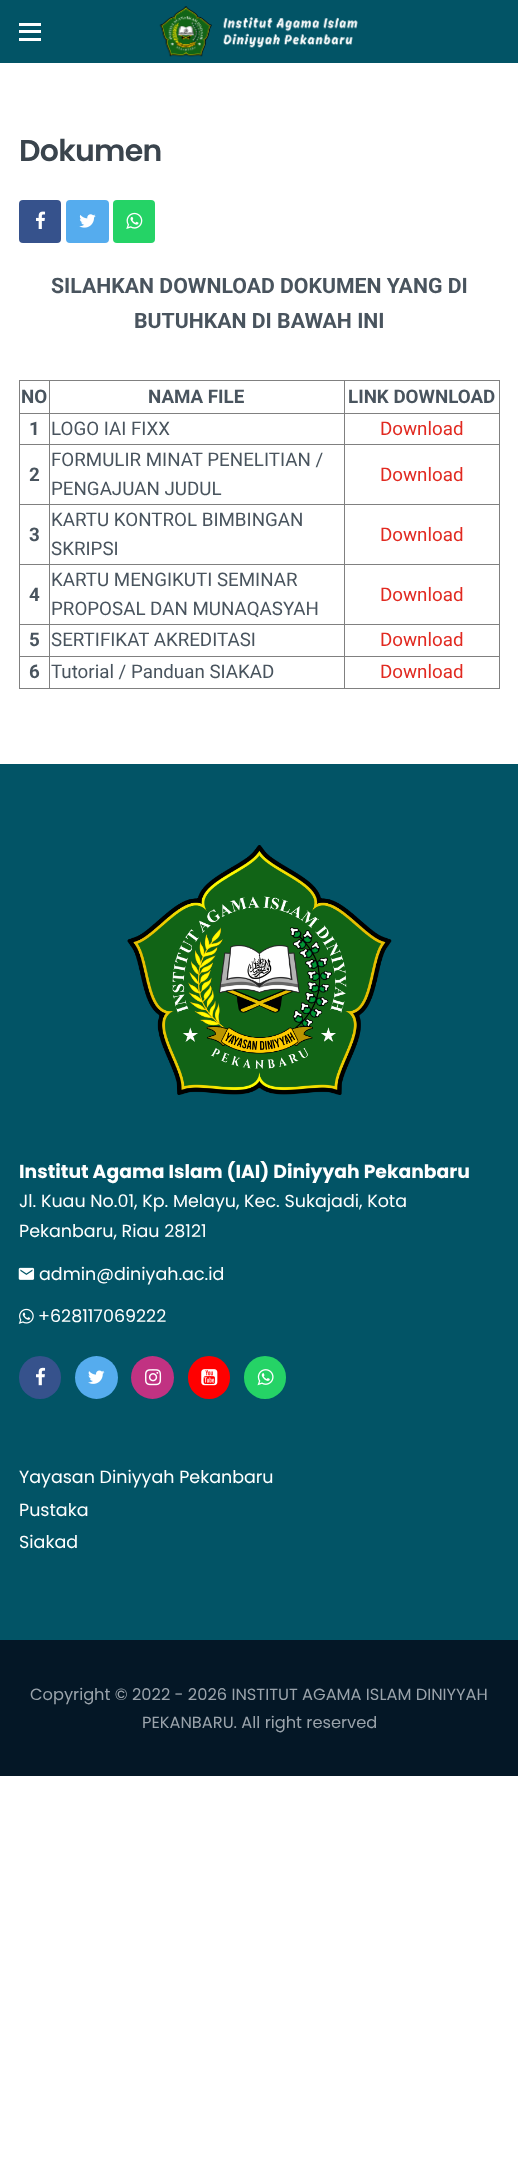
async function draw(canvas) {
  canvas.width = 518
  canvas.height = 2177
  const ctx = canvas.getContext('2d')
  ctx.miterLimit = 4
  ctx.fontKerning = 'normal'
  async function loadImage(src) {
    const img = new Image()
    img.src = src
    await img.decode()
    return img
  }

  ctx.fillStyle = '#fff'
  ctx.fillRect(0, 0, 518, 2177)
  ctx.fillStyle = '#025466'
  ctx.fillRect(0, 0, 518, 63)
  ctx.fillStyle = '#fff'
  ctx.fillRect(19, 30, 22, 3)
  ctx.fillRect(19, 23, 22, 3)
  ctx.fillRect(19, 38, 22, 3)
  ctx.drawImage(await loadImage('image0.png'), 159, 6, 199, 51)
  ctx.letterSpacing = '-0.75px'
  ctx.font = '600 30px Poppins'
  ctx.fillStyle = '#3a444d'
  ctx.fillText('Dokumen', 19, 161)
  ctx.fillStyle = '#36528c'
  ctx.beginPath()
  ctx.roundRect(19, 200, 42, 43, 4)
  ctx.fill()
  ctx.drawImage(await loadImage('image1.png'), 36, 211, 10, 18)
  ctx.fillStyle = '#55acee'
  ctx.beginPath()
  ctx.roundRect(66, 200, 43, 43, 4)
  ctx.fill()
  ctx.drawImage(await loadImage('image2.png'), 79, 214, 17, 14)
  ctx.fillStyle = '#25d366'
  ctx.beginPath()
  ctx.roundRect(113, 200, 42, 43, 4)
  ctx.fill()
  ctx.drawImage(await loadImage('image3.png'), 126, 212, 17, 17)
  ctx.letterSpacing = '0px'
  ctx.font = 'bold 21.25px Roboto'
  ctx.fillStyle = '#49545e'
  ctx.fillText('SILAHKAN DOWNLOAD DOKUMEN YANG DI', 51, 293)
  ctx.fillText('BUTUHKAN DI BAWAH INI', 134, 328)
  ctx.fillStyle = '#808080'
  ctx.fillRect(19, 380, 481, 1)
  ctx.fillRect(499, 380, 1, 309)
  ctx.fillRect(19, 688, 481, 1)
  ctx.fillRect(19, 380, 1, 309)
  ctx.font = 'bold 18.75px Roboto'
  ctx.fillStyle = '#49545e'
  ctx.fillText('NO', 21, 403)
  ctx.fillStyle = '#808080'
  ctx.fillRect(344, 413, 156, 1)
  ctx.fillRect(344, 444, 156, 1)
  ctx.fillRect(344, 504, 156, 1)
  ctx.fillRect(344, 564, 156, 1)
  ctx.fillRect(344, 624, 156, 1)
  ctx.fillRect(344, 656, 156, 1)
  ctx.fillRect(344, 656, 1, 33)
  ctx.fillRect(49, 656, 296, 1)
  ctx.fillRect(344, 624, 1, 34)
  ctx.fillRect(49, 624, 296, 1)
  ctx.fillRect(344, 564, 1, 61)
  ctx.fillRect(49, 564, 296, 1)
  ctx.fillRect(344, 504, 1, 61)
  ctx.fillRect(49, 504, 296, 1)
  ctx.fillRect(344, 444, 1, 61)
  ctx.fillRect(49, 444, 296, 1)
  ctx.fillRect(344, 413, 1, 32)
  ctx.fillRect(49, 413, 296, 1)
  ctx.fillRect(49, 656, 1, 33)
  ctx.fillRect(19, 656, 31, 1)
  ctx.fillRect(49, 624, 1, 34)
  ctx.fillRect(19, 624, 31, 1)
  ctx.fillRect(49, 564, 1, 61)
  ctx.fillRect(19, 564, 31, 1)
  ctx.fillRect(49, 504, 1, 61)
  ctx.fillRect(19, 504, 31, 1)
  ctx.fillRect(49, 444, 1, 61)
  ctx.fillRect(19, 444, 31, 1)
  ctx.fillRect(49, 413, 1, 32)
  ctx.fillRect(19, 413, 31, 1)
  ctx.fillRect(49, 380, 1, 34)
  ctx.fillStyle = '#49545e'
  ctx.fillText('NAMA FILE', 148, 403)
  ctx.fillStyle = '#808080'
  ctx.fillRect(344, 380, 1, 34)
  ctx.fillStyle = '#49545e'
  ctx.fillText('LINK DOWNLOAD', 348, 403)
  ctx.fillText('1', 29, 435)
  ctx.font = '18.75px Roboto'
  ctx.fillText('LOGO IAI FIXX', 51, 435)
  ctx.fillStyle = '#e12a21'
  ctx.fillText('Download', 380, 435)
  ctx.font = 'bold 18.75px Roboto'
  ctx.fillStyle = '#49545e'
  ctx.fillText('2', 29, 481)
  ctx.font = '18.75px Roboto'
  ctx.fillText('FORMULIR MINAT PENELITIAN /', 51, 466)
  ctx.fillText('PENGAJUAN JUDUL', 51, 495)
  ctx.fillStyle = '#e12a21'
  ctx.fillText('Download', 380, 481)
  ctx.font = 'bold 18.75px Roboto'
  ctx.fillStyle = '#49545e'
  ctx.fillText('3', 29, 541)
  ctx.font = '18.75px Roboto'
  ctx.fillText('KARTU KONTROL BIMBINGAN', 51, 526)
  ctx.fillText('SKRIPSI', 51, 555)
  ctx.fillStyle = '#e12a21'
  ctx.fillText('Download', 380, 541)
  ctx.font = 'bold 18.75px Roboto'
  ctx.fillStyle = '#49545e'
  ctx.fillText('4', 29, 601)
  ctx.font = '18.75px Roboto'
  ctx.fillText('KARTU MENGIKUTI SEMINAR', 51, 586)
  ctx.fillText('PROPOSAL DAN MUNAQASYAH', 51, 615)
  ctx.fillStyle = '#e12a21'
  ctx.fillText('Download', 380, 601)
  ctx.font = 'bold 18.75px Roboto'
  ctx.fillStyle = '#49545e'
  ctx.fillText('5', 29, 646)
  ctx.font = '18.75px Roboto'
  ctx.fillText('SERTIFIKAT AKREDITASI', 51, 646)
  ctx.fillStyle = '#e12a21'
  ctx.fillText('Download', 380, 646)
  ctx.font = 'bold 18.75px Roboto'
  ctx.fillStyle = '#49545e'
  ctx.fillText('6', 29, 678)
  ctx.font = '18.75px Roboto'
  ctx.fillText('Tutorial / Panduan SIAKAD', 51, 678)
  ctx.fillStyle = '#e12a21'
  ctx.fillText('Download', 380, 678)
  ctx.fillStyle = '#025466'
  ctx.fillRect(0, 764, 518, 876)
  ctx.drawImage(await loadImage('image4.png'), 127, 845, 265, 250)
  ctx.font = 'bold 18.75px Poppins'
  ctx.fillStyle = '#fff'
  ctx.fillText('Institut Agama Islam (IAI) Diniyyah Pekanbaru', 19, 1178)
  ctx.font = '17.5px Poppins'
  ctx.fillText('Jl. Kuau No.01, Kp. Melayu, Kec. Sukajadi, Kota', 19, 1207)
  ctx.fillText('Pekanbaru, Riau 28121', 19, 1237)
  ctx.drawImage(await loadImage('image5.png'), 18, 1267, 17, 13)
  ctx.fillText('admin@diniyah.ac.id', 39, 1280)
  ctx.drawImage(await loadImage('image6.png'), 18, 1308, 16, 16)
  ctx.fillText('+628117069222', 38, 1322)
  ctx.fillStyle = '#36528c'
  ctx.beginPath()
  ctx.roundRect(19, 1356, 42, 43, 21)
  ctx.fill()
  ctx.drawImage(await loadImage('image7.png'), 36, 1367, 10, 19)
  ctx.fillStyle = '#55acee'
  ctx.beginPath()
  ctx.arc(96.5, 1377.5, 21.5, 0, 2 * Math.PI)
  ctx.fill()
  ctx.drawImage(await loadImage('image8.png'), 88, 1370, 17, 14)
  ctx.fillStyle = '#c13282'
  ctx.beginPath()
  ctx.arc(152.5, 1377.5, 21.5, 0, 2 * Math.PI)
  ctx.fill()
  ctx.drawImage(await loadImage('image9.png'), 145, 1369, 17, 17)
  ctx.fillStyle = '#f00'
  ctx.beginPath()
  ctx.roundRect(188, 1356, 42, 43, 21)
  ctx.fill()
  ctx.drawImage(await loadImage('image10.png'), 201, 1369, 17, 17)
  ctx.fillStyle = '#25d366'
  ctx.beginPath()
  ctx.roundRect(244, 1356, 42, 43, 21)
  ctx.fill()
  ctx.drawImage(await loadImage('image11.png'), 257, 1369, 17, 17)
  ctx.fillStyle = '#fff'
  ctx.fillText('Yayasan Diniyyah Pekanbaru', 19, 1483)
  ctx.fillText('Pustaka', 19, 1516)
  ctx.fillText('Siakad', 19, 1548)
  ctx.fillStyle = '#041726'
  ctx.fillRect(0, 1640, 518, 136)
  ctx.font = '16.25px Poppins'
  ctx.fillStyle = '#9aa3ab'
  ctx.fillText('Copyright © 2022 - 2026 INSTITUT AGAMA ISLAM DINIYYAH', 30, 1700)
  ctx.fillText('PEKANBARU. All right reserved', 142, 1728)
}

draw(document.querySelector('canvas'))
